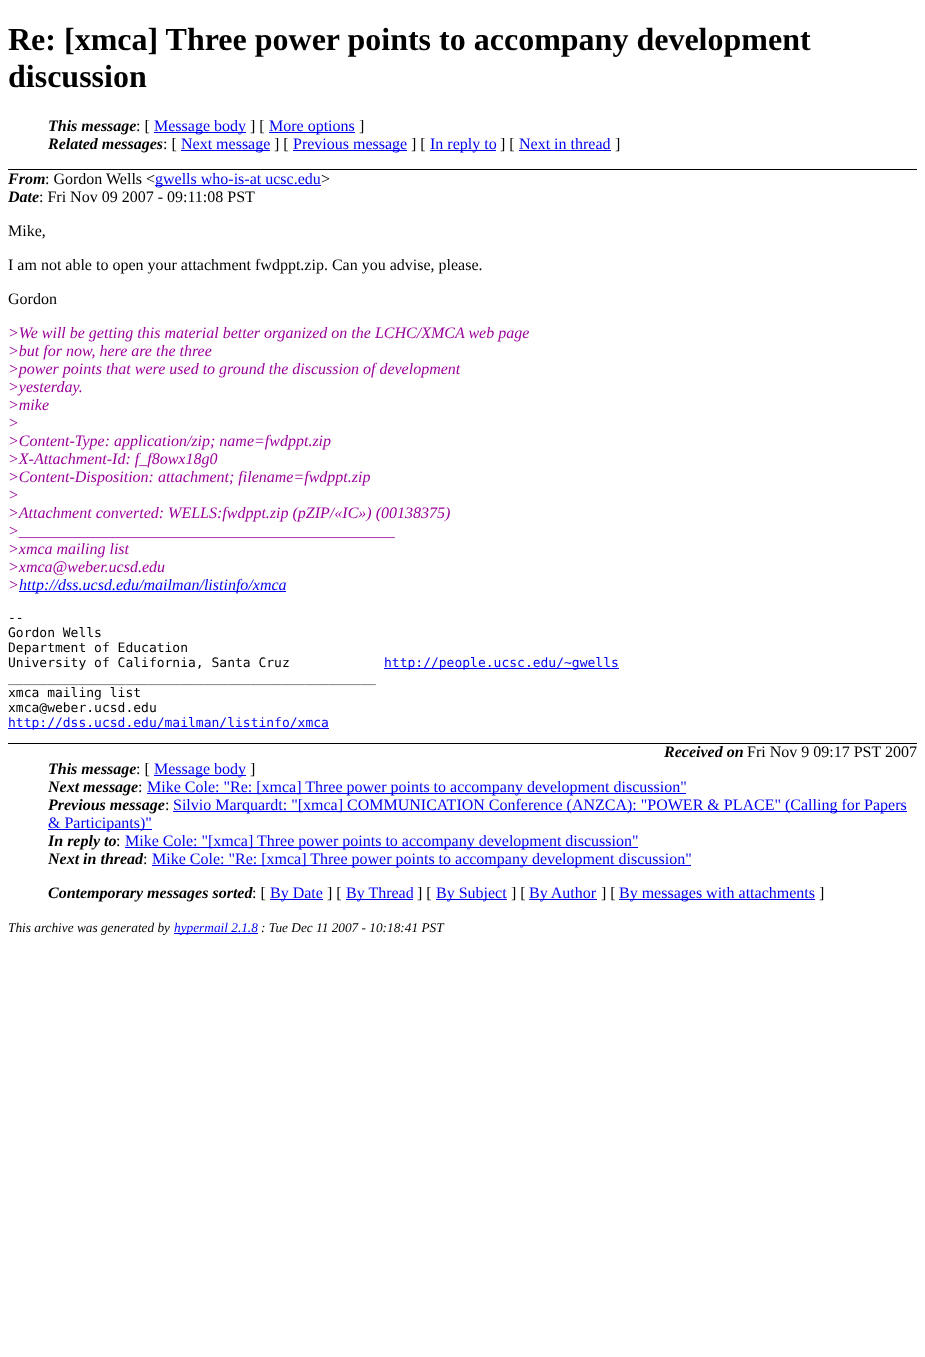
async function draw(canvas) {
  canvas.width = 925
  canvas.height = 1357
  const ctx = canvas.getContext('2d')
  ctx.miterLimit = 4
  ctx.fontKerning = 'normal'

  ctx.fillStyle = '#fff'
  ctx.fillRect(0, 0, 925, 1357)
  ctx.fillStyle = '#000'
  ctx.fillRect(8, 169, 909, 1)
  ctx.font = 'bold 32px Liberation Serif'
  ctx.fillText('Re: [xmca] Three power points to accompany development', 8, 50)
  ctx.fillText('discussion', 8, 87)
  ctx.font = 'italic bold 16px Liberation Serif'
  ctx.fillText('This message', 48, 131)
  ctx.font = '16px Liberation Serif'
  ctx.fillText(': [', 136, 131)
  ctx.fillStyle = '#00e'
  ctx.fillRect(154, 132, 92, 1)
  ctx.fillText('Message body', 154, 131)
  ctx.fillStyle = '#000'
  ctx.fillText('] [', 250, 131)
  ctx.fillStyle = '#00e'
  ctx.fillRect(269, 132, 86, 1)
  ctx.fillText('More options', 269, 131)
  ctx.fillStyle = '#000'
  ctx.fillText(']', 359, 131)
  ctx.font = 'italic bold 16px Liberation Serif'
  ctx.fillText('Related messages', 48, 149)
  ctx.font = '16px Liberation Serif'
  ctx.fillText(': [', 163, 149)
  ctx.fillStyle = '#00e'
  ctx.fillRect(181, 150, 89, 1)
  ctx.fillText('Next message', 181, 149)
  ctx.fillStyle = '#000'
  ctx.fillText('] [', 274, 149)
  ctx.fillStyle = '#00e'
  ctx.fillRect(293, 150, 114, 1)
  ctx.fillText('Previous message', 293, 149)
  ctx.fillStyle = '#000'
  ctx.fillText('] [', 411, 149)
  ctx.fillStyle = '#00e'
  ctx.fillRect(430, 150, 66, 1)
  ctx.fillText('In reply to', 430, 149)
  ctx.fillStyle = '#000'
  ctx.fillText('] [', 500, 149)
  ctx.fillStyle = '#00e'
  ctx.fillText('Next in thread', 519, 149)
  ctx.fillRect(519, 150, 92, 1)
  ctx.fillStyle = '#000'
  ctx.fillText(']', 615, 149)
  ctx.font = 'italic bold 16px Liberation Serif'
  ctx.fillText('From', 8, 184)
  ctx.font = '16px Liberation Serif'
  ctx.fillText(': Gordon Wells <', 45, 184)
  ctx.fillStyle = '#00e'
  ctx.fillRect(155, 185, 166, 1)
  ctx.fillText('gwells who-is-at ucsc.edu', 155, 184)
  ctx.fillStyle = '#000'
  ctx.fillText('>', 321, 184)
  ctx.font = 'italic bold 16px Liberation Serif'
  ctx.fillText('Date', 8, 202)
  ctx.font = '16px Liberation Serif'
  ctx.fillText(': Fri Nov 09 2007 - 09:11:08 PST', 39, 202)
  ctx.fillText('Mike,', 8, 236)
  ctx.fillText('I am not able to open your attachment fwdppt.zip. Can you advise, please.', 8, 270)
  ctx.fillText('Gordon', 8, 304)
  ctx.font = 'italic 16px Liberation Serif'
  ctx.fillStyle = '#909'
  ctx.fillText('>We will be getting this material better organized on the LCHC/XMCA web page', 8, 338)
  ctx.fillText('>but for now, here are the three', 8, 356)
  ctx.fillText('>power points that were used to ground the discussion of development', 8, 374)
  ctx.fillText('>yesterday.', 8, 392)
  ctx.fillText('>mike', 8, 410)
  ctx.fillText('>', 8, 428)
  ctx.fillText('>Content-Type: application/zip; name=fwdppt.zip', 8, 446)
  ctx.fillText('>X-Attachment-Id: f_f8owx18g0', 8, 464)
  ctx.fillText('>Content-Disposition: attachment; filename=fwdppt.zip', 8, 482)
  ctx.fillText('>', 8, 500)
  ctx.fillText('>Attachment converted: WELLS:fwdppt.zip (pZIP/«IC») (00138375)', 8, 518)
  ctx.fillText('>_______________________________________________', 8, 536)
  ctx.fillText('>xmca mailing list', 8, 554)
  ctx.fillText('>xmca@weber.ucsd.edu', 8, 572)
  ctx.fillText('>', 8, 590)
  ctx.fillStyle = '#00e'
  ctx.fillRect(19, 591, 267, 1)
  ctx.fillText('http://dss.ucsd.edu/mailman/listinfo/xmca', 19, 590)
  ctx.font = '13px DejaVu Sans Mono'
  ctx.fillStyle = '#000'
  ctx.fillText('--', 8, 622)
  ctx.fillText('Gordon Wells', 8, 637)
  ctx.fillText('Department of Education', 8, 652)
  ctx.fillText('University of California, Santa Cruz', 8, 667)
  ctx.fillStyle = '#00e'
  ctx.fillRect(384, 668, 235, 1)
  ctx.fillText('http://people.ucsc.edu/~gwells', 384, 667)
  ctx.fillStyle = '#000'
  ctx.fillText('_______________________________________________', 8, 682)
  ctx.fillText('xmca mailing list', 8, 697)
  ctx.fillText('xmca@weber.ucsd.edu', 8, 712)
  ctx.fillStyle = '#00e'
  ctx.fillRect(8, 728, 321, 1)
  ctx.fillText('http://dss.ucsd.edu/mailman/listinfo/xmca', 8, 727)
  ctx.font = 'italic bold 16px Liberation Serif'
  ctx.fillStyle = '#000'
  ctx.fillText('Received on', 664, 757)
  ctx.font = '16px Liberation Serif'
  ctx.fillText('Fri Nov 9 09:17 PST 2007', 747, 757)
  ctx.fillRect(8, 743, 909, 1)
  ctx.font = 'italic bold 16px Liberation Serif'
  ctx.fillText('This message', 48, 774)
  ctx.font = '16px Liberation Serif'
  ctx.fillText(': [', 136, 774)
  ctx.fillStyle = '#00e'
  ctx.fillRect(154, 775, 92, 1)
  ctx.fillText('Message body', 154, 774)
  ctx.fillStyle = '#000'
  ctx.fillText(']', 250, 774)
  ctx.font = 'italic bold 16px Liberation Serif'
  ctx.fillText('Next message', 48, 792)
  ctx.font = '16px Liberation Serif'
  ctx.fillText(':', 138, 792)
  ctx.fillStyle = '#00e'
  ctx.fillRect(147, 793, 539, 1)
  ctx.fillText('Mike Cole: "Re: [xmca] Three power points to accompany development discussion"', 147, 792)
  ctx.font = 'italic bold 16px Liberation Serif'
  ctx.fillStyle = '#000'
  ctx.fillText('Previous message', 48, 810)
  ctx.font = '16px Liberation Serif'
  ctx.fillText(':', 165, 810)
  ctx.fillStyle = '#00e'
  ctx.fillRect(173, 811, 734, 1)
  ctx.fillText('Silvio Marquardt: "[xmca] COMMUNICATION Conference (ANZCA): "POWER & PLACE" (Calling for Papers', 173, 810)
  ctx.fillRect(48, 829, 104, 1)
  ctx.fillText('& Participants)"', 48, 828)
  ctx.font = 'italic bold 16px Liberation Serif'
  ctx.fillStyle = '#000'
  ctx.fillText('In reply to', 48, 846)
  ctx.font = '16px Liberation Serif'
  ctx.fillText(':', 116, 846)
  ctx.fillStyle = '#00e'
  ctx.fillRect(125, 847, 513, 1)
  ctx.fillText('Mike Cole: "[xmca] Three power points to accompany development discussion"', 125, 846)
  ctx.font = 'italic bold 16px Liberation Serif'
  ctx.fillStyle = '#000'
  ctx.fillText('Next in thread', 48, 864)
  ctx.font = '16px Liberation Serif'
  ctx.fillText(':', 143, 864)
  ctx.fillStyle = '#00e'
  ctx.fillRect(152, 865, 539, 1)
  ctx.fillText('Mike Cole: "Re: [xmca] Three power points to accompany development discussion"', 152, 864)
  ctx.font = 'italic bold 16px Liberation Serif'
  ctx.fillStyle = '#000'
  ctx.fillText('Contemporary messages sorted', 48, 898)
  ctx.font = '16px Liberation Serif'
  ctx.fillText(': [', 252, 898)
  ctx.fillStyle = '#00e'
  ctx.fillRect(270, 899, 53, 1)
  ctx.fillText('By Date', 270, 898)
  ctx.fillStyle = '#000'
  ctx.fillText('] [', 327, 898)
  ctx.fillStyle = '#00e'
  ctx.fillRect(346, 899, 67, 1)
  ctx.fillText('By Thread', 346, 898)
  ctx.fillStyle = '#000'
  ctx.fillText('] [', 417, 898)
  ctx.fillStyle = '#00e'
  ctx.fillRect(436, 899, 71, 1)
  ctx.fillText('By Subject', 436, 898)
  ctx.fillStyle = '#000'
  ctx.fillText('] [', 511, 898)
  ctx.fillStyle = '#00e'
  ctx.fillRect(529, 899, 68, 1)
  ctx.fillText('By Author', 529, 898)
  ctx.fillStyle = '#000'
  ctx.fillText('] [', 601, 898)
  ctx.fillStyle = '#00e'
  ctx.fillRect(619, 899, 196, 1)
  ctx.fillText('By messages with attachments', 619, 898)
  ctx.fillStyle = '#000'
  ctx.fillText(']', 819, 898)
  ctx.font = 'italic 13.3px Liberation Serif'
  ctx.fillText('This archive was generated by', 8, 932)
  ctx.fillStyle = '#00e'
  ctx.fillRect(174, 933, 84, 1)
  ctx.fillText('hypermail 2.1.8', 174, 932)
  ctx.fillStyle = '#000'
  ctx.fillText(': Tue Dec 11 2007 - 10:18:41 PST', 261, 932)
}

draw(document.querySelector('canvas'))
